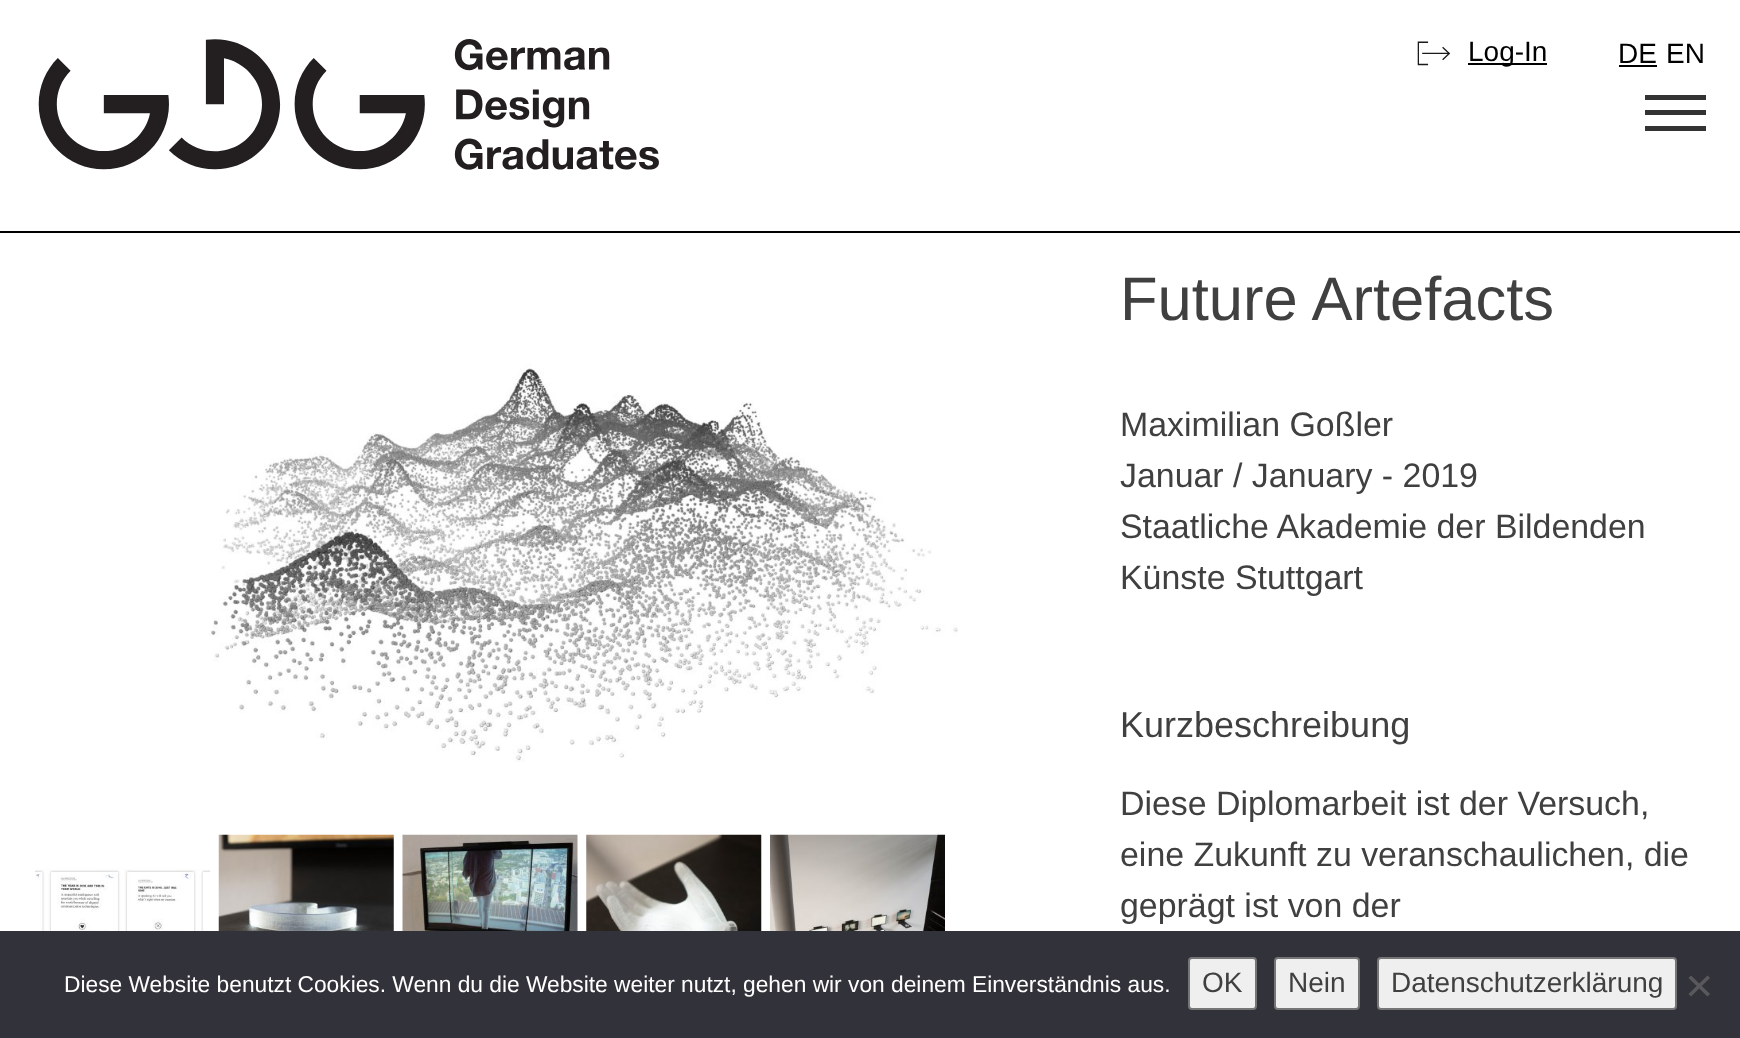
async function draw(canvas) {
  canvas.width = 1740
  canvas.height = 1038
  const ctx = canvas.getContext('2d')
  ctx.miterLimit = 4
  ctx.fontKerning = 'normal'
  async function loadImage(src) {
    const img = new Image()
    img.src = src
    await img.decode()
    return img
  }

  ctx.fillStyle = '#fff'
  ctx.fillRect(0, 0, 1740, 1038)
  ctx.fillStyle = '#000'
  ctx.fillRect(0, 231, 1740, 2)
  ctx.drawImage(await loadImage('image0.png'), 38, 39, 621, 131)
  ctx.drawImage(await loadImage('image1.png'), 1417, 41, 33, 25)
  ctx.fillRect(1468, 63, 79, 2)
  ctx.font = '28px Liberation Sans'
  ctx.fillText('Log-In', 1468, 61)
  ctx.fillText('DE', 1618, 63)
  ctx.fillRect(1619, 65, 38, 2)
  ctx.fillText('EN', 1666, 63)
  ctx.fillStyle = '#333'
  ctx.fillRect(1645, 95, 61, 5)
  ctx.fillRect(1645, 110, 61, 5)
  ctx.fillRect(1645, 126, 61, 5)
  ctx.drawImage(await loadImage('image2.png'), 209, 363, 749, 399)
  ctx.drawImage(await loadImage('image3.png'), 35, 868, 175, 63)
  ctx.drawImage(await loadImage('image4.png'), 218, 834, 176, 97)
  ctx.drawImage(await loadImage('image5.png'), 402, 834, 176, 97)
  ctx.drawImage(await loadImage('image6.png'), 586, 834, 176, 97)
  ctx.drawImage(await loadImage('image7.png'), 770, 834, 175, 97)
  ctx.font = '61.5px Liberation Sans'
  ctx.fillStyle = '#404040'
  ctx.fillText('Future Artefacts', 1120, 320)
  ctx.font = '33.9px Liberation Sans'
  ctx.fillText('Maximilian Goßler', 1120, 436)
  ctx.fillText('Januar / January - 2019', 1120, 487)
  ctx.fillText('Staatliche Akademie der Bildenden', 1120, 538)
  ctx.fillText('Künste Stuttgart', 1120, 589)
  ctx.font = '36px Liberation Sans'
  ctx.fillText('Kurzbeschreibung', 1120, 737)
  ctx.font = '33.9px Liberation Sans'
  ctx.fillText('Diese Diplomarbeit ist der Versuch,', 1120, 815)
  ctx.fillText('eine Zukunft zu veranschaulichen, die', 1120, 866)
  ctx.fillText('geprägt ist von der', 1120, 917)
  ctx.fillStyle = '#32323a'
  ctx.fillRect(0, 931, 1740, 107)
  ctx.font = '22.75px Liberation Sans'
  ctx.fillStyle = '#fff'
  ctx.fillText('Diese Website benutzt Cookies. Wenn du die Website weiter nutzt, gehen wir von deinem Einverständnis aus.', 64, 992)
  ctx.fillStyle = '#efefef'
  ctx.beginPath()
  ctx.roundRect(1189, 958, 67, 51, 3)
  ctx.fill()
  ctx.strokeStyle = '#767676'
  ctx.lineWidth = 2
  ctx.stroke()
  ctx.font = '28px Liberation Sans'
  ctx.fillStyle = '#404040'
  ctx.fillText('OK', 1202, 992)
  ctx.fillStyle = '#efefef'
  ctx.beginPath()
  ctx.roundRect(1275, 958, 84, 51, 3)
  ctx.fill()
  ctx.stroke()
  ctx.fillStyle = '#404040'
  ctx.fillText('Nein', 1288, 992)
  ctx.fillStyle = '#efefef'
  ctx.beginPath()
  ctx.roundRect(1378, 958, 298, 51, 3)
  ctx.fill()
  ctx.stroke()
  ctx.fillStyle = '#404040'
  ctx.fillText('Datenschutzerklärung', 1391, 992)
  ctx.fillStyle = '#59595d'
  ctx.beginPath()
  ctx.moveTo(1707.5, 975.5)
  ctx.lineTo(1710, 978)
  ctx.lineTo(1691, 996.5)
  ctx.lineTo(1688.5, 994)
  ctx.closePath()
  ctx.fill()
  ctx.beginPath()
  ctx.moveTo(1688.5, 978)
  ctx.lineTo(1691, 975.5)
  ctx.lineTo(1710, 994)
  ctx.lineTo(1707.5, 996.5)
  ctx.closePath()
  ctx.fill()
}

draw(document.querySelector('canvas'))
